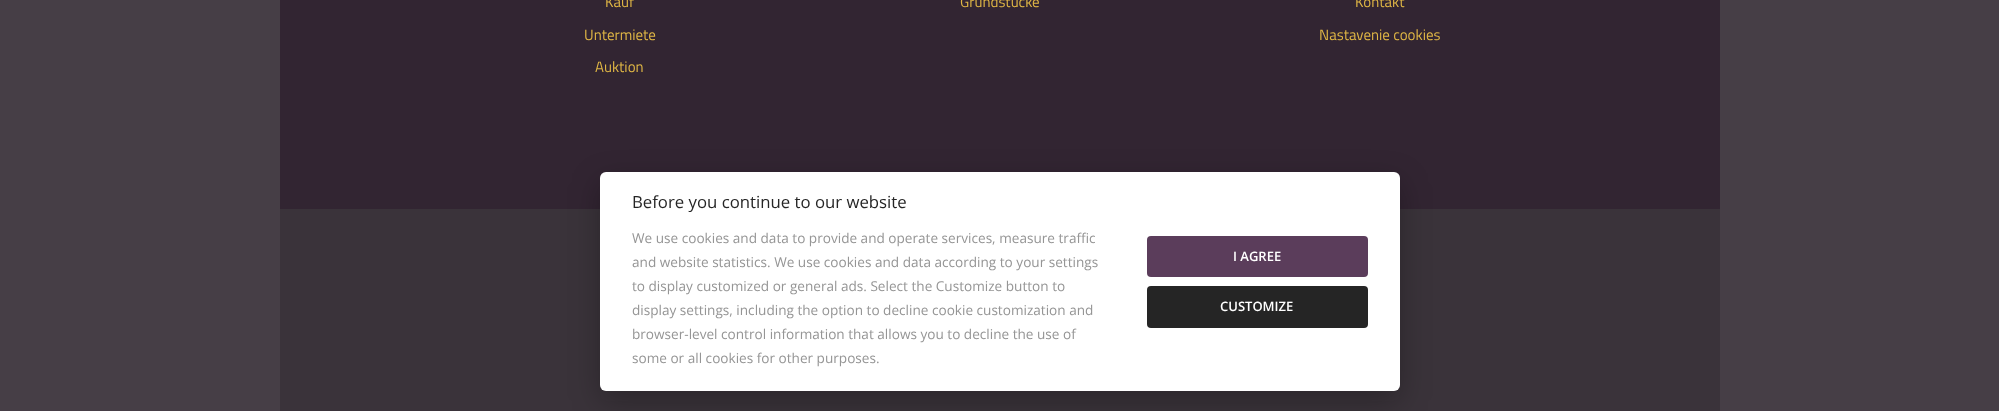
async function draw(canvas) {
  canvas.width = 1999
  canvas.height = 411
  const ctx = canvas.getContext('2d')
  ctx.miterLimit = 4
  ctx.fontKerning = 'normal'

  ctx.fillStyle = '#463e46'
  ctx.fillRect(0, 0, 1999, 411)
  ctx.fillStyle = '#3a333a'
  ctx.fillRect(280, 209, 1440, 202)
  ctx.fillStyle = '#322532'
  ctx.fillRect(280, 0, 1440, 209)
  ctx.font = '15px Titillium Web'
  ctx.fillStyle = '#e0b745'
  ctx.fillText('Kauf', 605, 7)
  ctx.fillText('Untermiete', 584, 40)
  ctx.fillText('Auktion', 595, 72)
  ctx.fillText('Grundstücke', 960, 7)
  ctx.fillText('Kontakt', 1355, 7)
  ctx.fillText('Nastavenie cookies', 1319, 40)
  ctx.fillStyle = '#02020347'
  ctx.filter = 'blur(15px)'
  ctx.beginPath()
  ctx.roundRect(600, 182, 800, 219, 6)
  ctx.fill()
  ctx.filter = 'none'
  ctx.fillStyle = '#fff'
  ctx.beginPath()
  ctx.roundRect(600, 172, 800, 219, 6)
  ctx.fill()
  ctx.font = '16.75px Open Sans'
  ctx.fillStyle = '#252525'
  ctx.fillText('Before you continue to our website', 632, 208)
  ctx.font = '13.6px Open Sans'
  ctx.fillStyle = '#959595'
  ctx.fillText('We use cookies and data to provide and operate services, measure traffic', 632, 243)
  ctx.fillText('and website statistics. We use cookies and data according to your settings', 632, 267)
  ctx.fillText('to display customized or general ads. Select the Customize button to', 632, 291)
  ctx.fillText('display settings, including the option to decline cookie customization and', 632, 315)
  ctx.fillText('browser-level control information that allows you to decline the use of', 632, 339)
  ctx.fillText('some or all cookies for other purposes.', 632, 363)
  ctx.fillStyle = '#5b3d5b'
  ctx.beginPath()
  ctx.roundRect(1147, 236, 221, 41, 4)
  ctx.fill()
  ctx.font = '600 13px Open Sans'
  ctx.fillStyle = '#fff'
  ctx.fillText('I AGREE', 1233, 261)
  ctx.fillStyle = '#252525'
  ctx.beginPath()
  ctx.roundRect(1147, 286, 221, 42, 4)
  ctx.fill()
  ctx.fillStyle = '#fff'
  ctx.fillText('CUSTOMIZE', 1220, 311)
}

draw(document.querySelector('canvas'))
